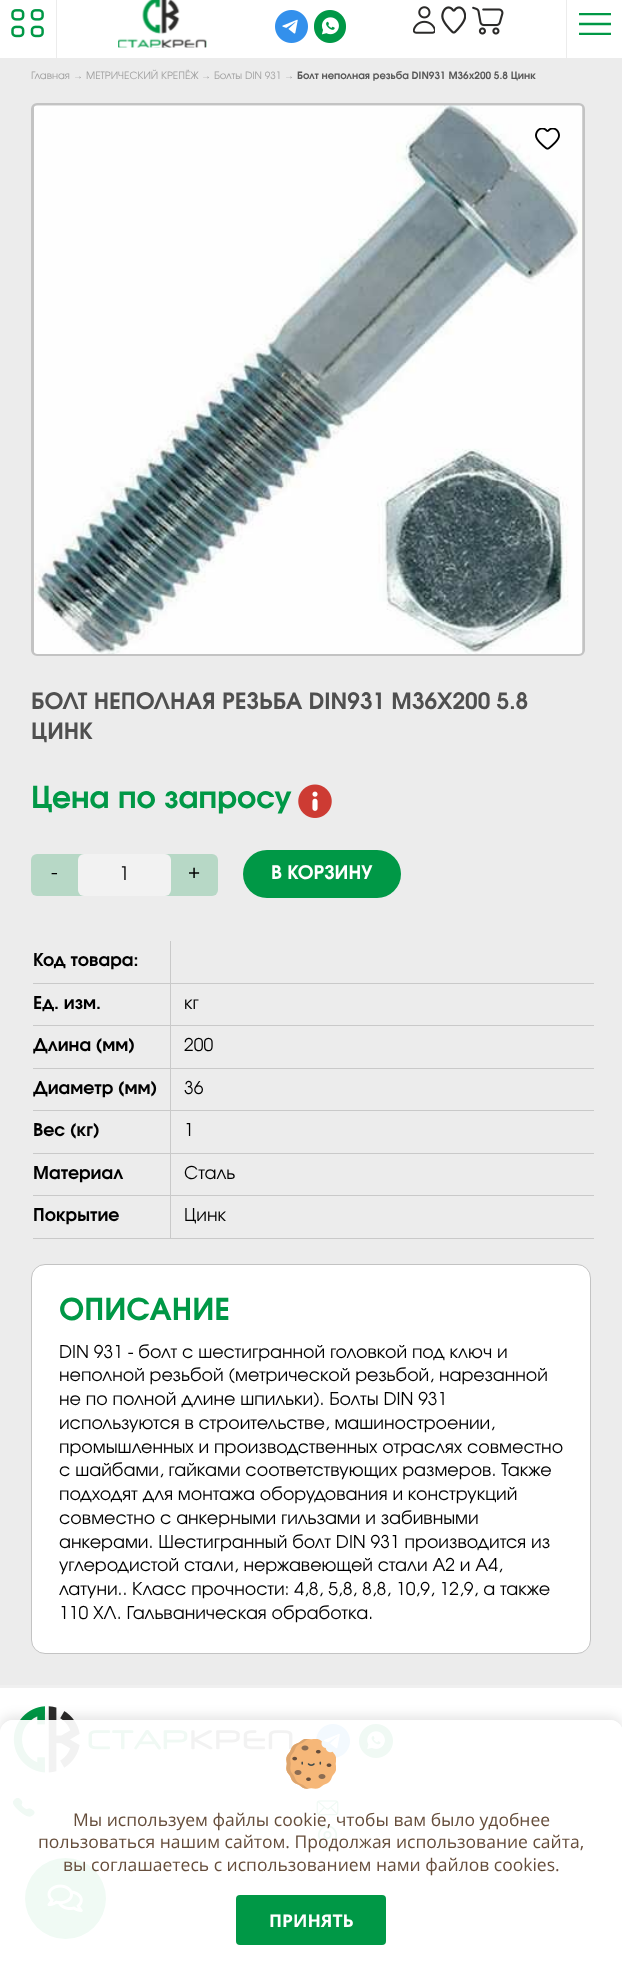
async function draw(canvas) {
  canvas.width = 622
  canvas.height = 1963
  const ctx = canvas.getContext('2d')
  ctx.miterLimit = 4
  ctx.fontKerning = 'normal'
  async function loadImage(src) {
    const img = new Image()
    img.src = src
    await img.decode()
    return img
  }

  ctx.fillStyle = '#fff'
  ctx.fillRect(0, 0, 622, 1963)
  ctx.fillStyle = '#ececec'
  ctx.fillRect(56, 0, 1, 58)
  ctx.drawImage(await loadImage('image0.png'), 11, 9, 33, 29)
  ctx.drawImage(await loadImage('image1.png'), 118, 0, 89, 48)
  ctx.drawImage(await loadImage('image2.png'), 275, 10, 33, 33)
  ctx.drawImage(await loadImage('image3.png'), 314, 10, 32, 33)
  ctx.drawImage(await loadImage('image4.png'), 413, 6, 22, 28)
  ctx.drawImage(await loadImage('image5.png'), 441, 6, 25, 28)
  ctx.drawImage(await loadImage('image6.png'), 472, 6, 32, 29)
  ctx.fillRect(566, 0, 1, 58)
  ctx.save()
  ctx.beginPath()
  ctx.rect(579, 13, 32, 22)
  ctx.clip()
  ctx.beginPath()
  ctx.moveTo(579, 14)
  ctx.lineTo(611, 14)
  ctx.strokeStyle = '#009846'
  ctx.lineWidth = 2.5
  ctx.stroke()
  ctx.restore()
  ctx.beginPath()
  ctx.moveTo(579, 24)
  ctx.lineTo(611, 24)
  ctx.strokeStyle = '#009846'
  ctx.lineWidth = 2.5
  ctx.stroke()
  ctx.save()
  ctx.beginPath()
  ctx.rect(579, 13, 32, 22)
  ctx.clip()
  ctx.beginPath()
  ctx.moveTo(579, 34)
  ctx.lineTo(611, 34)
  ctx.stroke()
  ctx.restore()
  ctx.fillRect(0, 58, 622, 1627)
  ctx.font = '10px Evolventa'
  ctx.fillStyle = '#a0a0a0'
  ctx.fillText('Главная', 31, 79)
  ctx.font = '10px Liberation Sans'
  ctx.fillText('→', 73, 79)
  ctx.font = '10px Evolventa'
  ctx.fillText('МЕТРИЧЕСКИЙ КРЕПЁЖ', 86, 79)
  ctx.font = '10px Liberation Sans'
  ctx.fillText('→', 201, 79)
  ctx.font = '10px Evolventa'
  ctx.fillText('Болты DIN 931', 214, 79)
  ctx.font = '10px Liberation Sans'
  ctx.fillText('→', 284, 79)
  ctx.font = 'bold 10px Evolventa'
  ctx.fillStyle = '#585858'
  ctx.fillText('Болт неполная резьба DIN931 М36х200 5.8 Цинк', 297, 79)
  ctx.beginPath()
  ctx.roundRect(32.5, 104.5, 551, 550, 4.5)
  ctx.strokeStyle = '#c3c3c3'
  ctx.lineWidth = 3
  ctx.stroke()
  ctx.drawImage(await loadImage('image7.png'), 34, 105, 549, 549)
  ctx.drawImage(await loadImage('image8.png'), 535, 128, 25, 22)
  ctx.font = 'bold 22.5px Evolventa'
  ctx.fillStyle = '#4f4f4f'
  ctx.fillText('БОЛТ НЕПОЛНАЯ РЕЗЬБА DIN931 М36Х200 5.8', 31, 709)
  ctx.fillText('ЦИНК', 31, 739)
  ctx.font = 'bold 30px Evolventa'
  ctx.fillStyle = '#009846'
  ctx.fillText('Цена по запросу', 31, 808)
  ctx.drawImage(await loadImage('image9.png'), 298, 784, 34, 34)
  ctx.fillStyle = '#b7d8c6'
  ctx.beginPath()
  ctx.roundRect(31, 854, 187, 42, 6)
  ctx.fill()
  ctx.font = '20px Evolventa'
  ctx.fillStyle = '#000'
  ctx.fillText('-', 51, 879)
  ctx.fillStyle = '#f2f2f2'
  ctx.beginPath()
  ctx.roundRect(78, 854, 93, 42, 6)
  ctx.fill()
  ctx.font = '18.75px Evolventa'
  ctx.fillStyle = '#000'
  ctx.fillText('1', 119, 880)
  ctx.font = '20px Evolventa'
  ctx.fillText('+', 188, 879)
  ctx.fillStyle = '#009846'
  ctx.beginPath()
  ctx.roundRect(243, 850, 158, 48, 24)
  ctx.fill()
  ctx.font = 'bold 18.75px Evolventa'
  ctx.fillStyle = '#fff'
  ctx.fillText('В КОРЗИНУ', 271, 879)
  ctx.fillStyle = '#c9c9c9'
  ctx.fillRect(170, 1238, 424, 1)
  ctx.fillRect(170, 1195, 1, 44)
  ctx.fillRect(170, 1195, 424, 1)
  ctx.fillRect(170, 1153, 1, 43)
  ctx.fillRect(170, 1153, 424, 1)
  ctx.fillRect(170, 1110, 1, 44)
  ctx.fillRect(170, 1110, 424, 1)
  ctx.fillRect(170, 1068, 1, 43)
  ctx.fillRect(170, 1068, 424, 1)
  ctx.fillRect(170, 1025, 1, 44)
  ctx.fillRect(170, 1025, 424, 1)
  ctx.fillRect(170, 983, 1, 43)
  ctx.fillRect(170, 983, 424, 1)
  ctx.fillRect(170, 941, 1, 43)
  ctx.fillRect(33, 983, 138, 1)
  ctx.font = 'bold 17.5px Evolventa'
  ctx.fillStyle = '#000'
  ctx.fillText('Код товара:', 33, 966)
  ctx.fillStyle = '#c9c9c9'
  ctx.fillRect(33, 1025, 138, 1)
  ctx.fillStyle = '#000'
  ctx.fillText('Ед. изм.', 33, 1009)
  ctx.font = '17.5px Evolventa'
  ctx.fillText('кг', 184, 1009)
  ctx.fillStyle = '#c9c9c9'
  ctx.fillRect(33, 1068, 138, 1)
  ctx.font = 'bold 17.5px Evolventa'
  ctx.fillStyle = '#000'
  ctx.fillText('Длина (мм)', 33, 1051)
  ctx.font = '17.5px Evolventa'
  ctx.fillText('200', 184, 1051)
  ctx.fillStyle = '#c9c9c9'
  ctx.fillRect(33, 1110, 138, 1)
  ctx.font = 'bold 17.5px Evolventa'
  ctx.fillStyle = '#000'
  ctx.fillText('Диаметр (мм)', 33, 1094)
  ctx.font = '17.5px Evolventa'
  ctx.fillText('36', 184, 1094)
  ctx.fillStyle = '#c9c9c9'
  ctx.fillRect(33, 1153, 138, 1)
  ctx.font = 'bold 17.5px Evolventa'
  ctx.fillStyle = '#000'
  ctx.fillText('Вес (кг)', 33, 1136)
  ctx.font = '17.5px Evolventa'
  ctx.fillText('1', 184, 1136)
  ctx.fillStyle = '#c9c9c9'
  ctx.fillRect(33, 1195, 138, 1)
  ctx.font = 'bold 17.5px Evolventa'
  ctx.fillStyle = '#000'
  ctx.fillText('Материал', 33, 1179)
  ctx.font = '17.5px Evolventa'
  ctx.fillText('Сталь', 184, 1179)
  ctx.fillStyle = '#c9c9c9'
  ctx.fillRect(33, 1238, 138, 1)
  ctx.font = 'bold 17.5px Evolventa'
  ctx.fillStyle = '#000'
  ctx.fillText('Покрытие', 33, 1221)
  ctx.font = '17.5px Evolventa'
  ctx.fillText('Цинк', 184, 1221)
  ctx.fillStyle = '#fff'
  ctx.beginPath()
  ctx.roundRect(31.5, 1264.5, 559, 389, 13.5)
  ctx.fill()
  ctx.lineWidth = 1
  ctx.stroke()
  ctx.font = 'bold 30px Evolventa'
  ctx.fillStyle = '#009846'
  ctx.fillText('ОПИСАНИЕ', 59, 1320)
  ctx.font = '17.5px Evolventa'
  ctx.fillStyle = '#000'
  ctx.fillText('DIN 931 - болт с шестигранной головкой под ключ и', 59, 1358)
  ctx.fillText('неполной резьбой (метрической резьбой, нарезанной', 59, 1381)
  ctx.fillText('не по полной длине шпильки). Болты DIN 931', 59, 1405)
  ctx.fillText('используются в строительстве, машиностроении,', 59, 1429)
  ctx.fillText('промышленных и производственных отраслях совместно', 59, 1453)
  ctx.fillText('с шайбами, гайками соответствующих размеров. Также', 59, 1476)
  ctx.fillText('подходят для монтажа оборудования и конструкций', 59, 1500)
  ctx.fillText('совместно с анкерными гильзами и забивными', 59, 1524)
  ctx.fillText('анкерами. Шестигранный болт DIN 931 производится из', 59, 1548)
  ctx.fillText('углеродистой стали, нержавеющей стали А2 и А4,', 59, 1571)
  ctx.fillText('латуни.. Класс прочности: 4,8, 5,8, 8,8, 10,9, 12,9, а также', 59, 1595)
  ctx.fillText('110 ХЛ. Гальваническая обработка.', 59, 1619)
  ctx.fillStyle = '#f0f0f0'
  ctx.fillRect(0, 1685, 622, 3)
  ctx.drawImage(await loadImage('image10.png'), 13, 1706, 280, 67)
  ctx.drawImage(await loadImage('image11.png'), 316, 1724, 34, 34)
  ctx.drawImage(await loadImage('image12.png'), 359, 1724, 34, 34)
  ctx.drawImage(await loadImage('image13.png'), 13, 1798, 22, 19)
  ctx.drawImage(await loadImage('image14.png'), 316, 1800, 23, 16)
  ctx.drawImage(await loadImage('image15.png'), 317, 1825, 21, 25)
  ctx.fillStyle = '#02aa4b'
  ctx.beginPath()
  ctx.arc(65.5, 1898.5, 40.5, 0, 2 * Math.PI)
  ctx.fill()
  ctx.drawImage(await loadImage('image17.png'), 47, 1884, 36, 28)
  ctx.save()
  ctx.beginPath()
  ctx.moveTo(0, 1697)
  ctx.lineTo(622, 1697)
  ctx.lineTo(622, 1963)
  ctx.lineTo(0, 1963)
  ctx.closePath()
  ctx.moveTo(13, 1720)
  ctx.lineTo(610, 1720)
  ctx.bezierCurveTo(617, 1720, 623, 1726, 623, 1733)
  ctx.lineTo(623, 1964)
  ctx.lineTo(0, 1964)
  ctx.lineTo(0, 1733)
  ctx.bezierCurveTo(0, 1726, 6, 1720, 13, 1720)
  ctx.closePath()
  ctx.clip('evenodd')
  ctx.fillStyle = '#0000001a'
  ctx.filter = 'blur(6px)'
  ctx.beginPath()
  ctx.roundRect(0, 1716, 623, 244, 13)
  ctx.fill()
  ctx.filter = 'none'
  ctx.restore()
  ctx.fillStyle = '#fffffff0'
  ctx.beginPath()
  ctx.moveTo(13, 1720)
  ctx.lineTo(610, 1720)
  ctx.bezierCurveTo(617, 1720, 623, 1726, 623, 1733)
  ctx.lineTo(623, 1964)
  ctx.lineTo(0, 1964)
  ctx.lineTo(0, 1733)
  ctx.bezierCurveTo(0, 1726, 6, 1720, 13, 1720)
  ctx.closePath()
  ctx.fill()
  ctx.drawImage(await loadImage('image16.png'), 286, 1739, 50, 50)
  ctx.font = '17.5px Open Sans'
  ctx.fillStyle = '#654d3b'
  ctx.fillText('Мы используем файлы cookie, чтобы вам было удобнее', 73, 1826)
  ctx.fillText('пользоваться нашим сайтом. Продолжая использование сайта,', 38, 1848)
  ctx.fillText('вы соглашаетесь c использованием нами файлов cookies.', 63, 1871)
  ctx.fillStyle = '#009846'
  ctx.beginPath()
  ctx.roundRect(236, 1895, 150, 50, 4)
  ctx.fill()
  ctx.font = 'bold 17.5px Open Sans'
  ctx.fillStyle = '#fff'
  ctx.fillText('ПРИНЯТЬ', 269, 1927)
}

draw(document.querySelector('canvas'))
